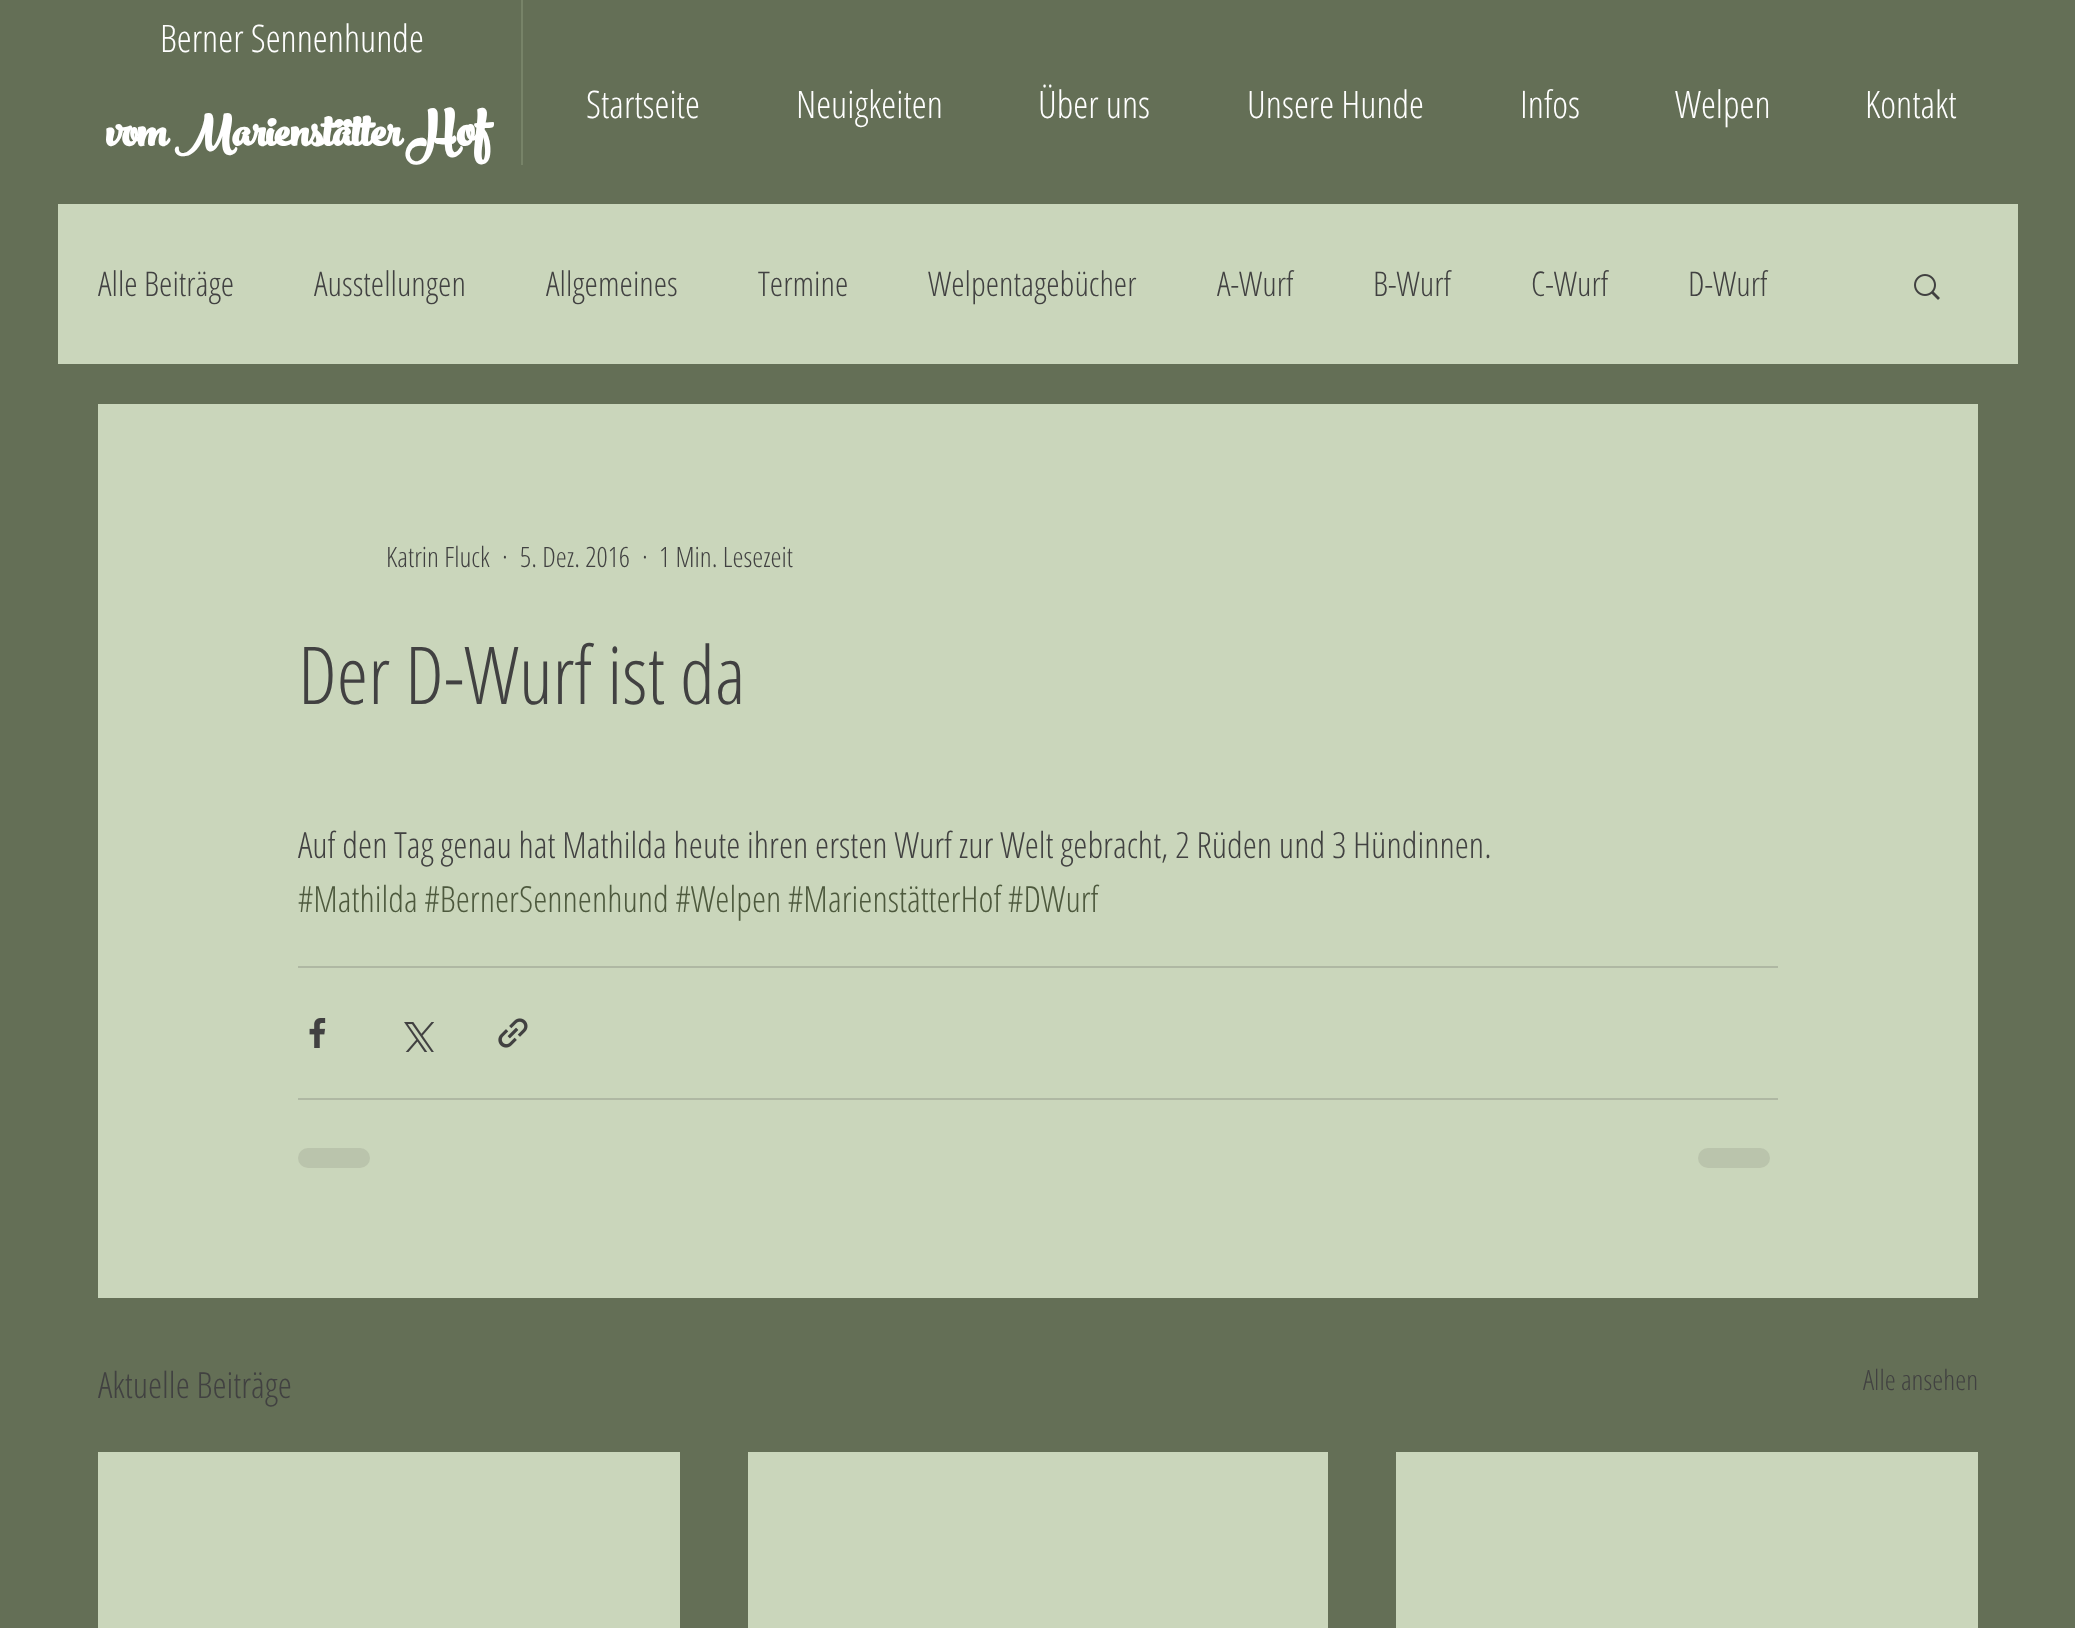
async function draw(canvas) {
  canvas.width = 2075
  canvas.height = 1628
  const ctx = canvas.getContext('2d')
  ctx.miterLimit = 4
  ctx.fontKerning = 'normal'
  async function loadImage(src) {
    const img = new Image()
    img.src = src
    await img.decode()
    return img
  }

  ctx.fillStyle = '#646f56'
  ctx.fillRect(0, 0, 2075, 1628)
  ctx.font = '300 38px Open Sans Condensed'
  ctx.fillStyle = '#fff'
  ctx.fillText('Berner Sennenhunde', 160, 52)
  ctx.font = 'bold 66px "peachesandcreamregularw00"'
  ctx.fillText('vom Marienstätter', 106, 146)
  ctx.font = 'bold 76px "peachesandcreamregularw00"'
  ctx.fillText('Hof', 409, 146)
  ctx.fillStyle = '#778368'
  ctx.fillRect(521, 0, 2, 165)
  ctx.font = '300 38px Open Sans Condensed'
  ctx.fillStyle = '#fff'
  ctx.fillText('Startseite', 586, 118)
  ctx.fillText('Neuigkeiten', 796, 118)
  ctx.fillText('Über uns', 1038, 118)
  ctx.fillText('Unsere Hunde', 1247, 118)
  ctx.fillText('Infos', 1520, 118)
  ctx.fillText('Welpen', 1675, 118)
  ctx.fillText('Kontakt', 1865, 118)
  ctx.fillStyle = '#cad6bb'
  ctx.fillRect(58, 204, 1960, 160)
  ctx.font = '300 34px Open Sans Condensed'
  ctx.fillStyle = '#414141'
  ctx.fillText('Alle Beiträge', 98, 296)
  ctx.fillText('Ausstellungen', 314, 296)
  ctx.fillText('Allgemeines', 546, 296)
  ctx.fillText('Termine', 758, 296)
  ctx.fillText('Welpentagebücher', 928, 296)
  ctx.fillText('A-Wurf', 1217, 296)
  ctx.fillText('B-Wurf', 1373, 296)
  ctx.fillText('C-Wurf', 1531, 296)
  ctx.fillText('D-Wurf', 1688, 296)
  ctx.drawImage(await loadImage('image0.png'), 1914, 274, 26, 26)
  ctx.fillStyle = '#cad6bb'
  ctx.fillRect(98, 404, 1880, 894)
  ctx.font = '300 28px Open Sans Condensed'
  ctx.fillStyle = '#414141'
  ctx.fillText('Katrin Fluck', 386, 567)
  ctx.fillText('·', 502, 567)
  ctx.fillText('5. Dez. 2016', 520, 567)
  ctx.fillText('·', 642, 567)
  ctx.fillText('1 Min. Lesezeit', 659, 567)
  ctx.font = '300 80px Open Sans Condensed'
  ctx.fillText('Der D-Wurf ist da', 298, 704)
  ctx.font = '300 36px Open Sans Condensed'
  ctx.fillText('Auf den Tag genau hat Mathilda heute ihren ersten Wurf zur Welt gebracht, 2 Rüden und 3 Hündinnen.', 298, 858)
  ctx.fillStyle = '#4d593d'
  ctx.fillText('#Mathilda #BernerSennenhund #Welpen #MarienstätterHof #DWurf', 298, 912)
  ctx.fillStyle = '#afb8a3'
  ctx.fillRect(298, 966, 1480, 2)
  ctx.drawImage(await loadImage('image1.png'), 309, 1018, 17, 30)
  ctx.drawImage(await loadImage('image2.png'), 404, 1022, 30, 30)
  ctx.drawImage(await loadImage('image3.png'), 498, 1018, 30, 30)
  ctx.fillRect(298, 1098, 1480, 2)
  ctx.fillStyle = '#bac4ac'
  ctx.beginPath()
  ctx.roundRect(298, 1148, 72, 20, 10)
  ctx.fill()
  ctx.beginPath()
  ctx.roundRect(1698, 1148, 72, 20, 10)
  ctx.fill()
  ctx.fillStyle = '#414141'
  ctx.fillText('Aktuelle Beiträge', 98, 1398)
  ctx.font = '300 28px Open Sans Condensed'
  ctx.fillText('Alle ansehen', 1863, 1390)
  ctx.fillStyle = '#cad6bb'
  ctx.fillRect(98, 1452, 582, 176)
  ctx.fillRect(748, 1452, 580, 176)
  ctx.fillRect(1396, 1452, 582, 176)
}

draw(document.querySelector('canvas'))
